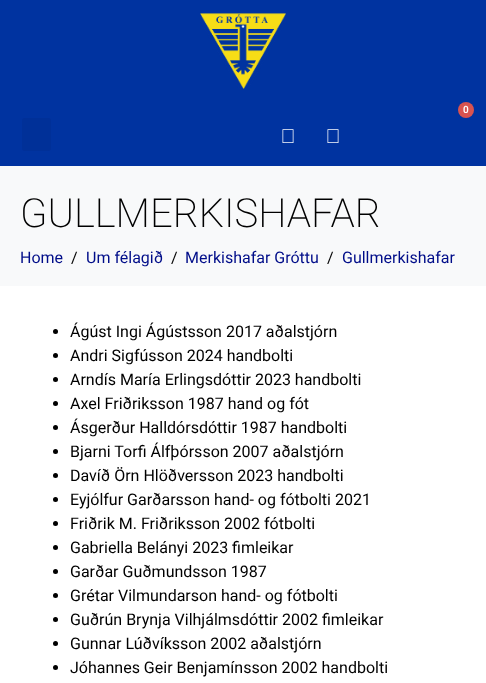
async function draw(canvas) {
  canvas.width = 486
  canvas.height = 683
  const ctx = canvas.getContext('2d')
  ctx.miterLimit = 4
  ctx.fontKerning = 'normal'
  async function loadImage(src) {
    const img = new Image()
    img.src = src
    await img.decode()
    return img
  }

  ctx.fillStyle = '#fff'
  ctx.fillRect(0, 0, 486, 683)
  ctx.fillStyle = '#0033a0'
  ctx.fillRect(0, 0, 486, 166)
  ctx.drawImage(await loadImage('image0.png'), 200, 13, 86, 76)
  ctx.fillStyle = '#d9534f'
  ctx.beginPath()
  ctx.arc(466, 110, 8, 0, 2 * Math.PI)
  ctx.fill()
  ctx.font = '600 10px Roboto'
  ctx.fillStyle = '#fff'
  ctx.fillText('0', 463, 113)
  ctx.fillStyle = '#003098'
  ctx.beginPath()
  ctx.roundRect(22, 118, 29, 33, 3)
  ctx.fill()
  ctx.drawImage(await loadImage('image1.png'), 282, 129, 12, 14)
  ctx.drawImage(await loadImage('image1.png'), 327, 129, 12, 14)
  ctx.fillStyle = '#f8f9fa'
  ctx.fillRect(0, 166, 486, 120)
  ctx.font = '200 40px Roboto'
  ctx.fillStyle = '#000'
  ctx.fillText('GULLMERKISHAFAR', 20, 227)
  ctx.font = '16px Roboto'
  ctx.fillStyle = '#000d89'
  ctx.fillText('Home', 20, 263)
  ctx.fillStyle = '#000'
  ctx.fillText('/', 71, 263)
  ctx.fillStyle = '#000d89'
  ctx.fillText('Um félagið', 86, 263)
  ctx.fillStyle = '#000'
  ctx.fillText('/', 171, 263)
  ctx.fillStyle = '#000d89'
  ctx.fillText('Merkishafar Gróttu', 185, 263)
  ctx.fillStyle = '#000'
  ctx.fillText('/', 327, 263)
  ctx.fillStyle = '#000d89'
  ctx.fillText('Gullmerkishafar', 342, 263)
  ctx.fillStyle = '#000'
  ctx.beginPath()
  ctx.arc(55.5, 331.5, 2.5, 0, 2 * Math.PI)
  ctx.fill()
  ctx.fillText('Ágúst Ingi Ágústsson 2017 aðalstjórn', 70, 337)
  ctx.beginPath()
  ctx.arc(55.5, 355.5, 2.5, 0, 2 * Math.PI)
  ctx.fill()
  ctx.fillText('Andri Sigfússon 2024 handbolti', 70, 361)
  ctx.beginPath()
  ctx.arc(55.5, 379.5, 2.5, 0, 2 * Math.PI)
  ctx.fill()
  ctx.fillText('Arndís María Erlingsdóttir 2023 handbolti', 70, 385)
  ctx.beginPath()
  ctx.arc(55.5, 403.5, 2.5, 0, 2 * Math.PI)
  ctx.fill()
  ctx.fillText('Axel Friðriksson 1987 hand og fót', 70, 409)
  ctx.beginPath()
  ctx.arc(55.5, 427.5, 2.5, 0, 2 * Math.PI)
  ctx.fill()
  ctx.fillText('Ásgerður Halldórsdóttir 1987 handbolti', 70, 433)
  ctx.beginPath()
  ctx.arc(55.5, 451.5, 2.5, 0, 2 * Math.PI)
  ctx.fill()
  ctx.fillText('Bjarni Torfi Álfþórsson 2007 aðalstjórn', 70, 457)
  ctx.beginPath()
  ctx.arc(55.5, 475.5, 2.5, 0, 2 * Math.PI)
  ctx.fill()
  ctx.fillText('Davíð Örn Hlöðversson 2023 handbolti', 70, 481)
  ctx.beginPath()
  ctx.arc(55.5, 499.5, 2.5, 0, 2 * Math.PI)
  ctx.fill()
  ctx.fillText('Eyjólfur Garðarsson hand- og fótbolti 2021', 70, 505)
  ctx.beginPath()
  ctx.arc(55.5, 523.5, 2.5, 0, 2 * Math.PI)
  ctx.fill()
  ctx.fillText('Friðrik M. Friðriksson 2002 fótbolti', 70, 529)
  ctx.beginPath()
  ctx.arc(55.5, 547.5, 2.5, 0, 2 * Math.PI)
  ctx.fill()
  ctx.fillText('Gabriella Belányi 2023 fimleikar', 70, 553)
  ctx.beginPath()
  ctx.arc(55.5, 571.5, 2.5, 0, 2 * Math.PI)
  ctx.fill()
  ctx.fillText('Garðar Guðmundsson 1987', 70, 577)
  ctx.beginPath()
  ctx.arc(55.5, 595.5, 2.5, 0, 2 * Math.PI)
  ctx.fill()
  ctx.fillText('Grétar Vilmundarson hand- og fótbolti', 70, 601)
  ctx.beginPath()
  ctx.arc(55.5, 619.5, 2.5, 0, 2 * Math.PI)
  ctx.fill()
  ctx.fillText('Guðrún Brynja Vilhjálmsdóttir 2002 fimleikar', 70, 625)
  ctx.beginPath()
  ctx.arc(55.5, 643.5, 2.5, 0, 2 * Math.PI)
  ctx.fill()
  ctx.fillText('Gunnar Lúðvíksson 2002 aðalstjórn', 70, 649)
  ctx.beginPath()
  ctx.arc(55.5, 667.5, 2.5, 0, 2 * Math.PI)
  ctx.fill()
  ctx.fillText('Jóhannes Geir Benjamínsson 2002 handbolti', 70, 673)
}

draw(document.querySelector('canvas'))
